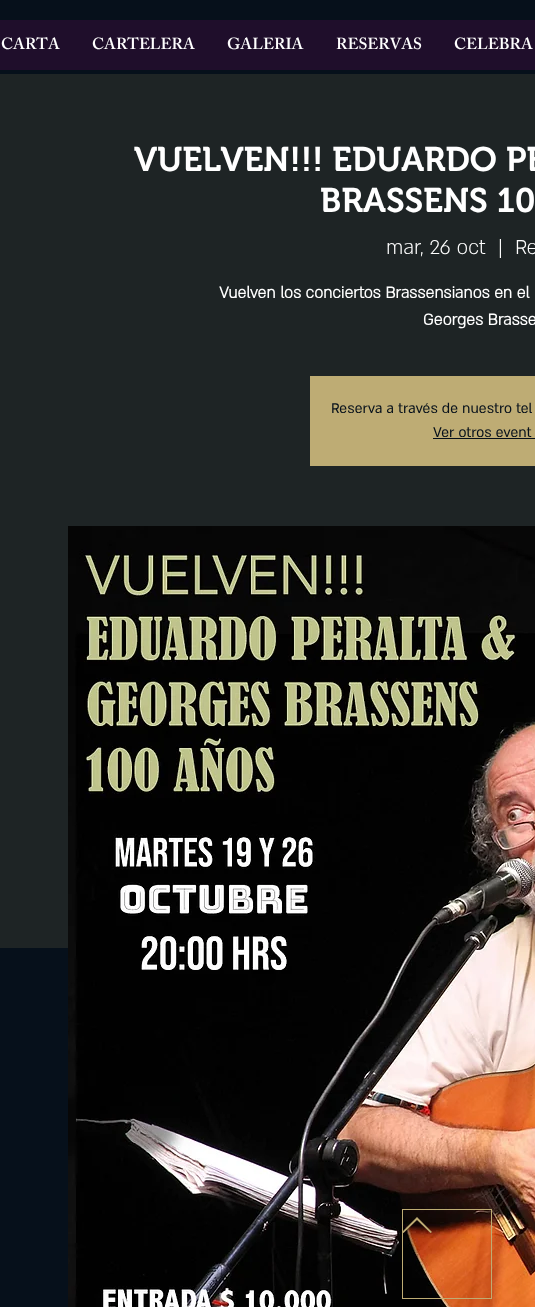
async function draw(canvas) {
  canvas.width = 535
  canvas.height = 1307
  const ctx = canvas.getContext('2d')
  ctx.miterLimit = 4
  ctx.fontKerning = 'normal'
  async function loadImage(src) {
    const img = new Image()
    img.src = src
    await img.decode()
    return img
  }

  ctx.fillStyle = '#06101b'
  ctx.fillRect(0, 0, 535, 1307)
  ctx.fillStyle = '#1f0e2b'
  ctx.fillRect(0, 20, 535, 50)
  ctx.font = '600 16px "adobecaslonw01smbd"'
  ctx.fillStyle = '#fff'
  ctx.fillText('CARTA', 1, 49)
  ctx.fillText('CARTELERA', 92, 49)
  ctx.fillText('GALERIA', 227, 49)
  ctx.fillText('RESERVAS', 336, 49)
  ctx.fillText('CELEBRA', 454, 49)
  ctx.fillStyle = '#1e2425'
  ctx.fillRect(0, 74, 535, 874)
  ctx.font = '600 34px "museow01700"'
  ctx.fillStyle = '#fff'
  ctx.fillText('VUELVEN!!! EDUARDO PE', 134, 171)
  ctx.fillText('BRASSENS 10', 320, 212)
  ctx.font = '300 23px "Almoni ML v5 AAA"'
  ctx.fillText('mar, 26 oct', 386, 254)
  ctx.fillText('|', 498, 254)
  ctx.fillText('Re', 515, 254)
  ctx.font = 'bold 18px "Almoni ML v5 AAA"'
  ctx.fillText('Vuelven los conciertos Brassensianos en el', 219, 298)
  ctx.fillText('Georges Brasse', 423, 325)
  ctx.fillStyle = '#beac74'
  ctx.fillRect(310, 376, 225, 90)
  ctx.font = '16px "Almoni ML v5 AAA"'
  ctx.fillStyle = '#06101b'
  ctx.fillText('Reserva a través de nuestro tel', 331, 413)
  ctx.fillText('Ver otros event', 433, 437)
  ctx.fillRect(433, 438, 102, 1)
  ctx.drawImage(await loadImage('image0.png'), 68, 526, 467, 781)
  ctx.strokeStyle = '#beac74'
  ctx.strokeRect(402.5, 1209.5, 89, 89)
  ctx.fillStyle = '#beac74'
  ctx.beginPath()
  ctx.moveTo(402, 1232)
  ctx.lineTo(403.5, 1233)
  ctx.lineTo(417, 1220)
  ctx.lineTo(430.5, 1233)
  ctx.lineTo(432, 1232)
  ctx.lineTo(417, 1217)
  ctx.closePath()
  ctx.fill()
}

draw(document.querySelector('canvas'))
